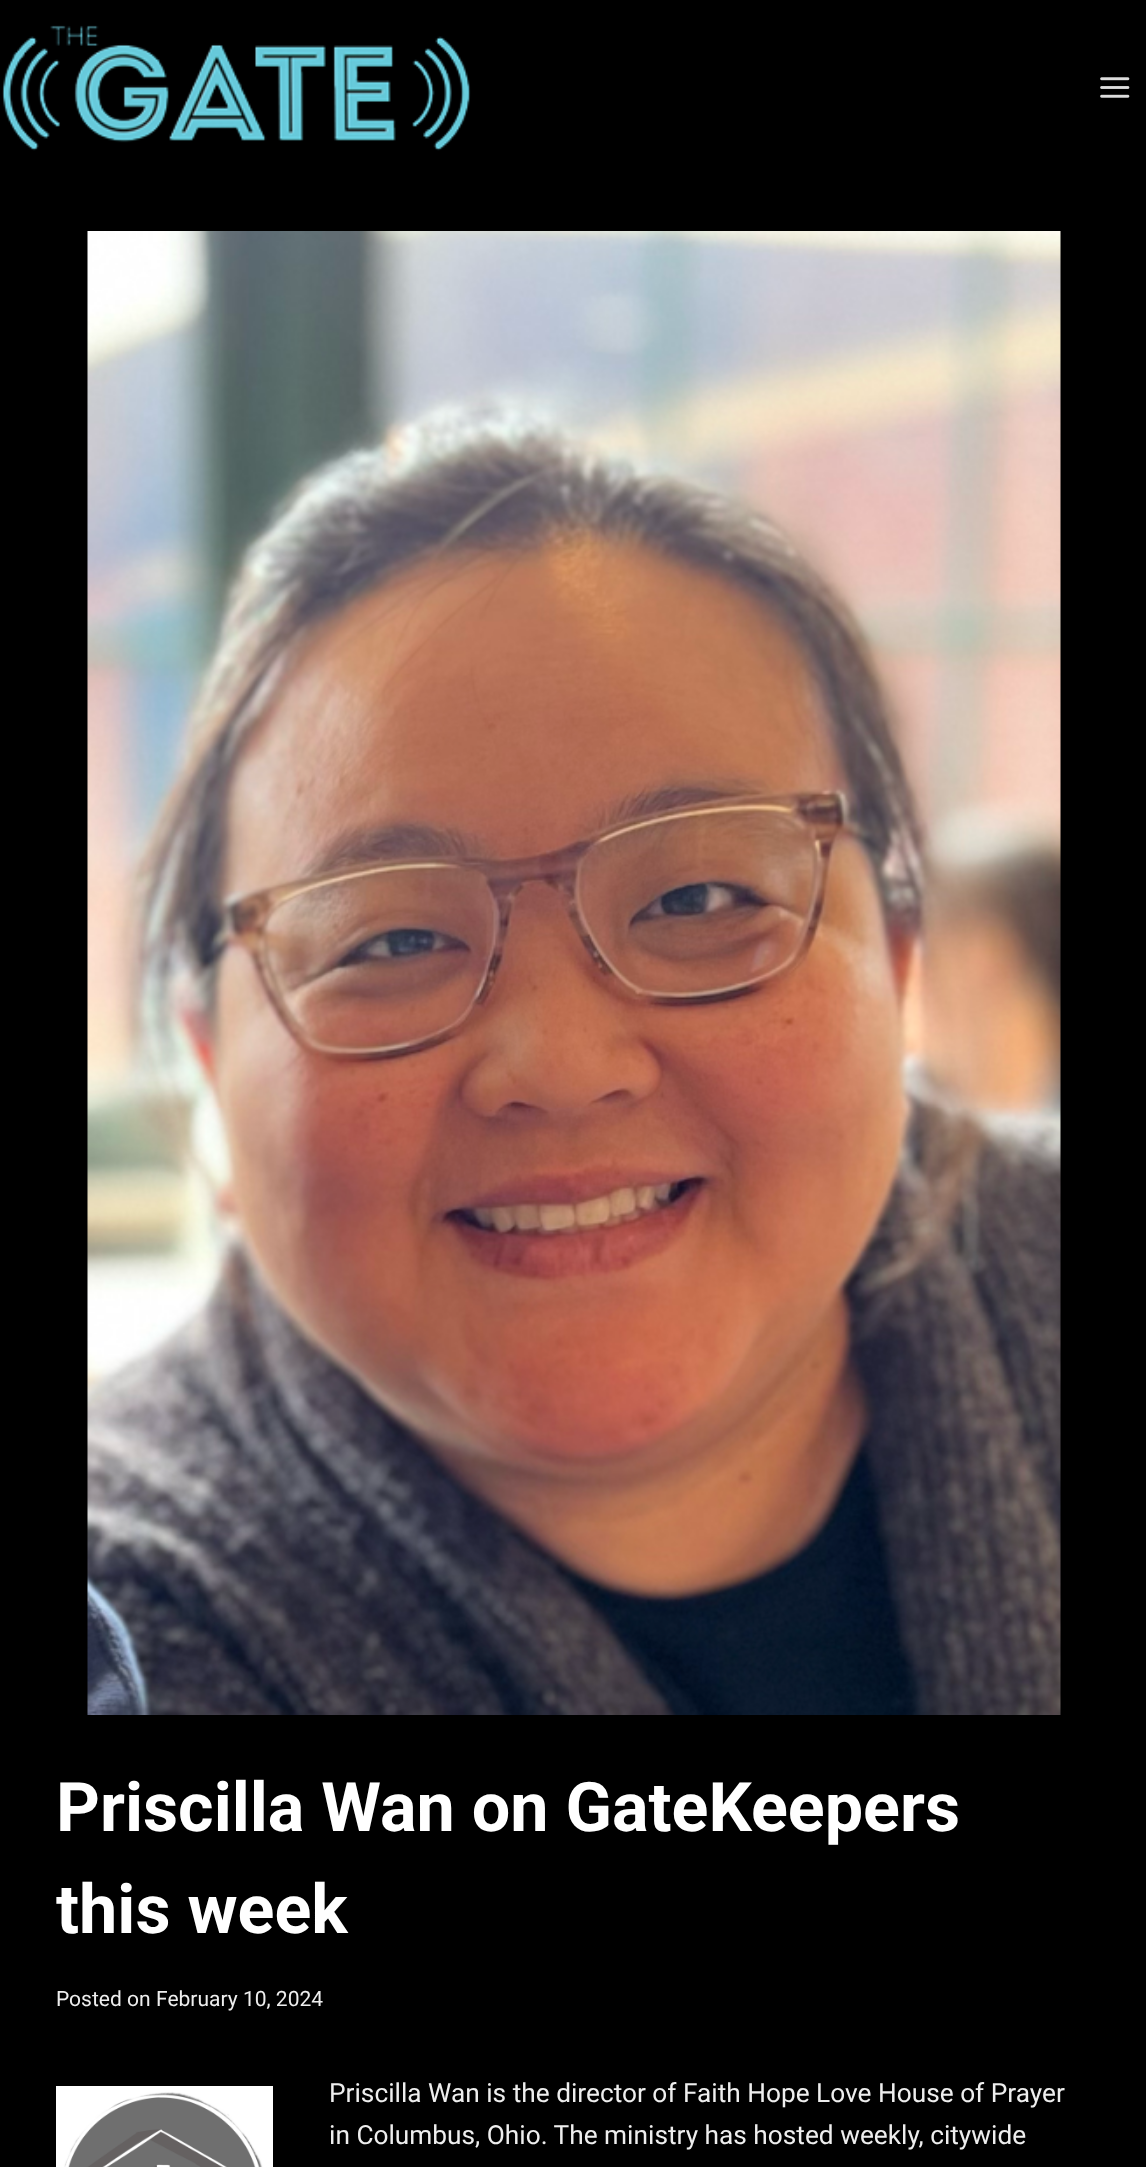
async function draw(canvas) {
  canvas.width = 1146
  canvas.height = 2167
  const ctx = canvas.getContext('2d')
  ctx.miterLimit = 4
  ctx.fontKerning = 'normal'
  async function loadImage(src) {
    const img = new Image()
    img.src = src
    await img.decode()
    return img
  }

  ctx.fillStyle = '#000'
  ctx.fillRect(0, 0, 1146, 2167)
  ctx.drawImage(await loadImage('image0.png'), 2, 25, 469, 126)
  ctx.drawImage(await loadImage('image1.png'), 1100, 77, 30, 21)
  ctx.drawImage(await loadImage('image2.png'), 87, 231, 974, 1484)
  ctx.font = 'bold 68.25px Roboto'
  ctx.fillStyle = '#fff'
  ctx.fillText('Priscilla Wan on GateKeepers', 56, 1831)
  ctx.fillText('this week', 56, 1933)
  ctx.font = '21px Roboto'
  ctx.fillStyle = '#eee'
  ctx.fillText('Posted on', 56, 2006)
  ctx.fillText('February 10, 2024', 156, 2006)
  ctx.drawImage(await loadImage('image3.png'), 56, 2086, 217, 81)
  ctx.font = '26.25px Roboto'
  ctx.fillText('Priscilla Wan is the director of Faith Hope Love House of Prayer', 329, 2102)
  ctx.fillText('in Columbus, Ohio. The ministry has hosted weekly, citywide', 329, 2144)
}

draw(document.querySelector('canvas'))
